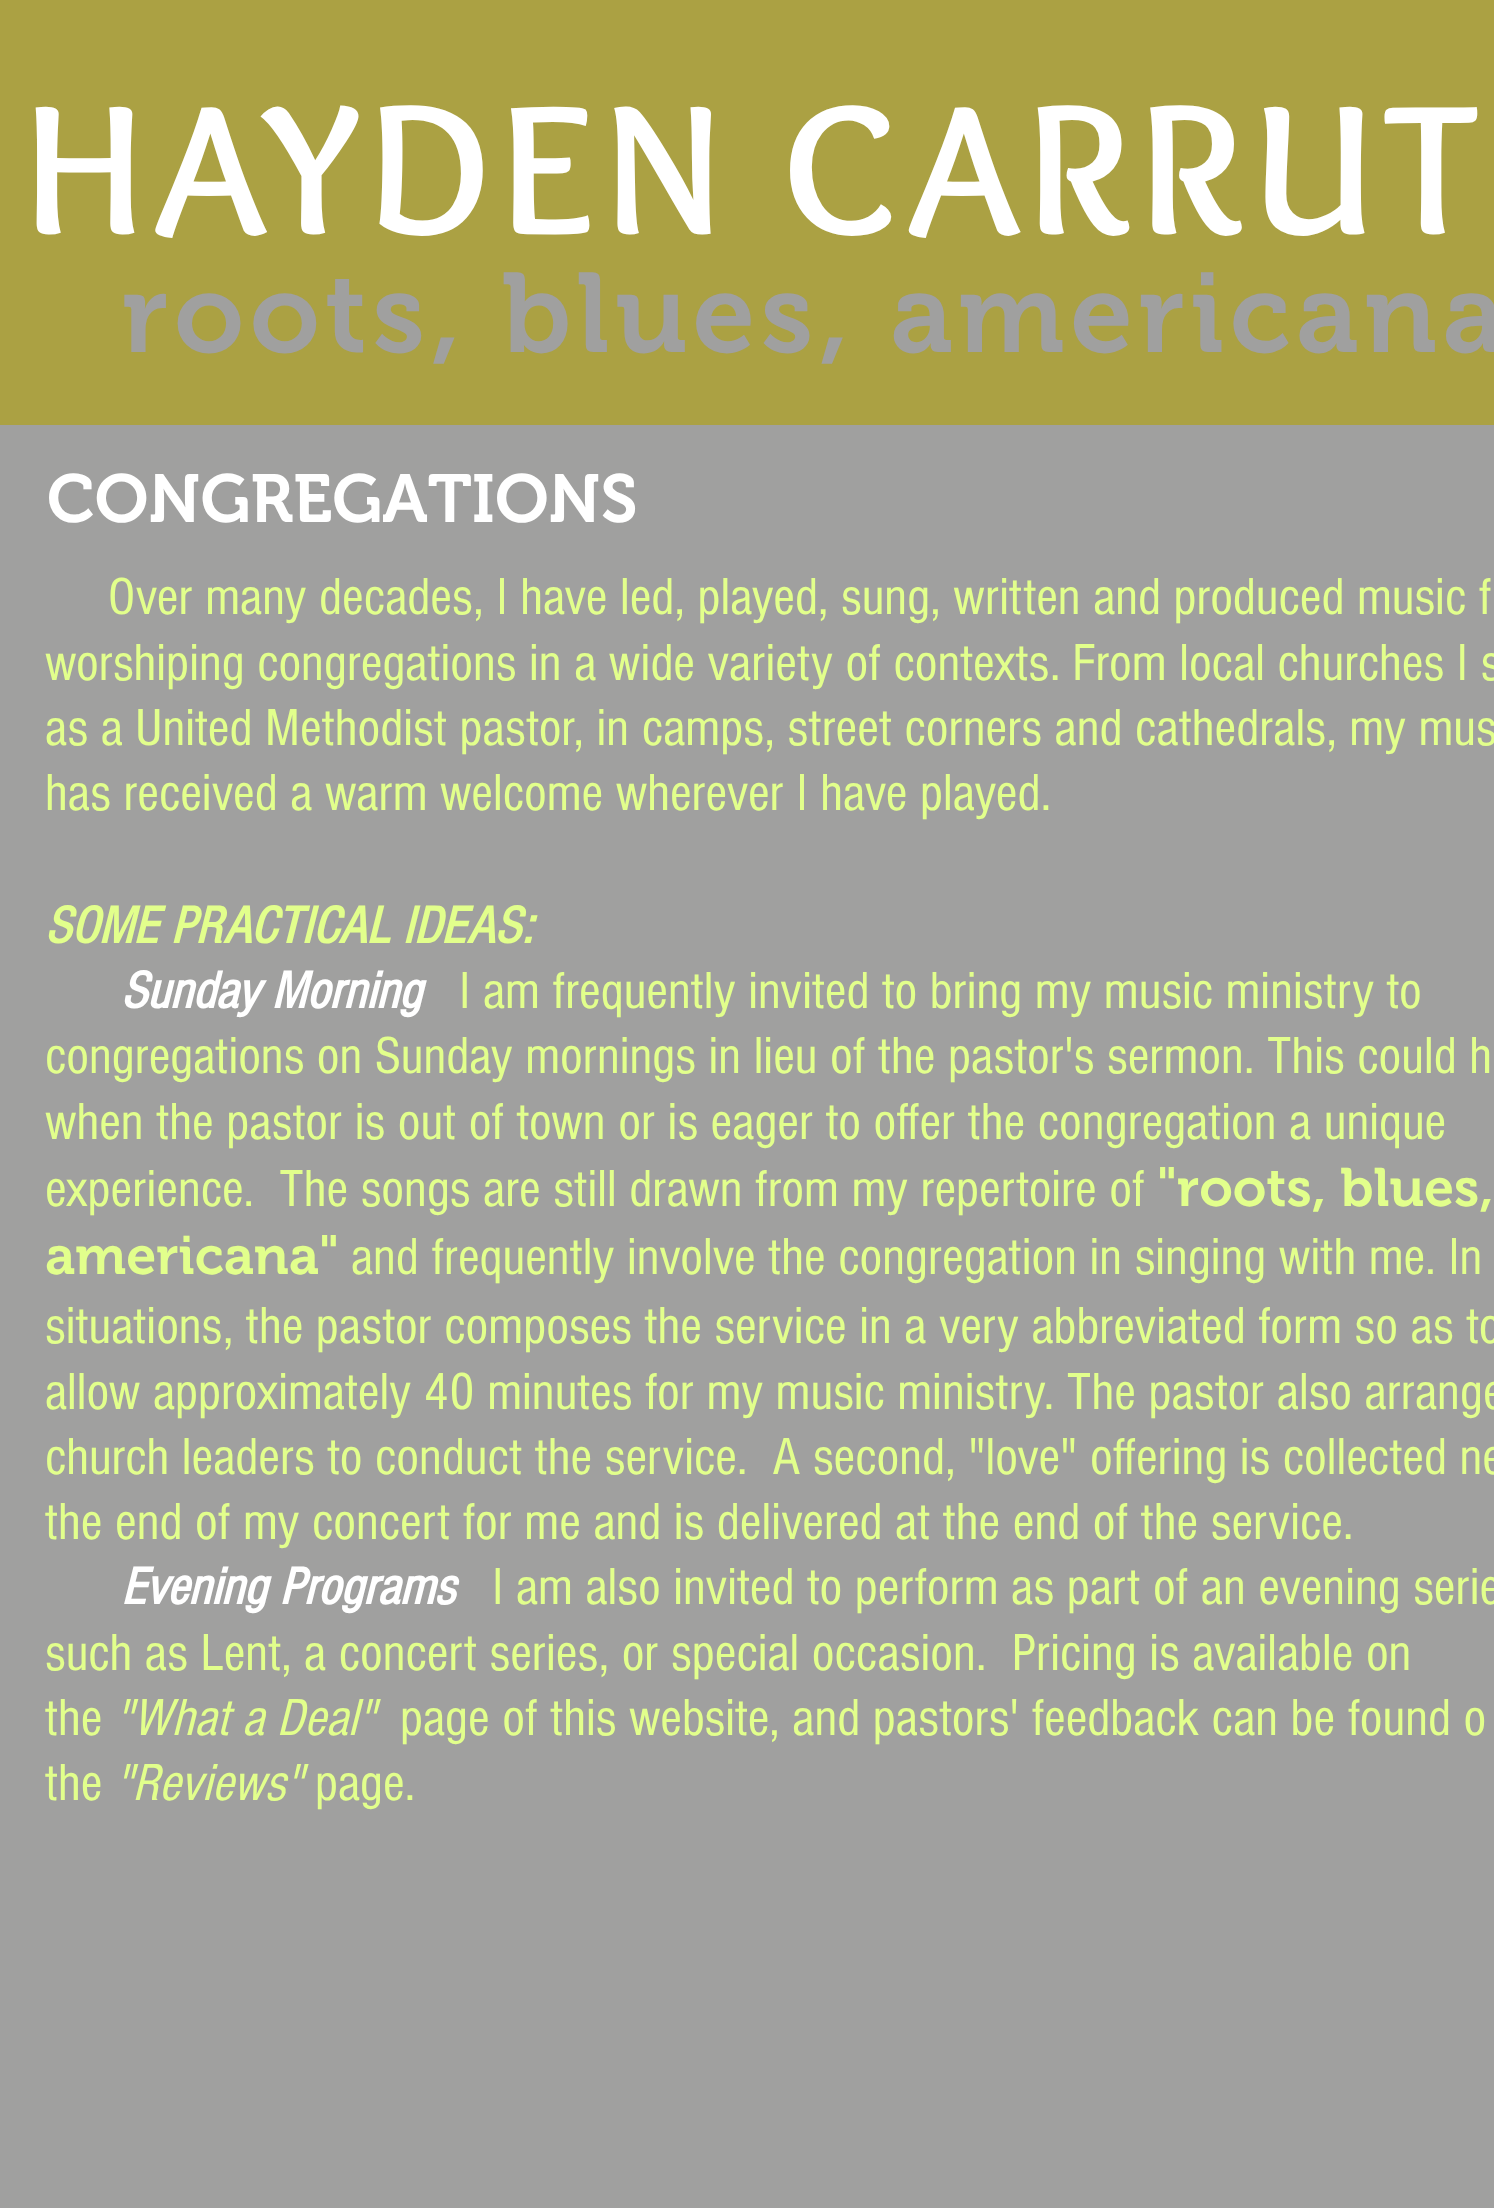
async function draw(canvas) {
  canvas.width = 1494
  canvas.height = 2208
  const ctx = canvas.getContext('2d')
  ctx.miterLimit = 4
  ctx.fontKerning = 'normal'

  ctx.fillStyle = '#aba143'
  ctx.fillRect(0, 0, 1494, 2208)
  ctx.letterSpacing = '9.5px'
  ctx.font = 'bold 191.25px Overlock'
  ctx.fillStyle = '#fff'
  ctx.fillText('HAYDEN CARRUT', 25, 234)
  ctx.letterSpacing = '5.6px'
  ctx.font = '600 112.5px "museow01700"'
  ctx.fillStyle = '#a0a09f'
  ctx.fillText('roots, blues, americana', 122, 352)
  ctx.fillRect(0, 425, 1494, 1783)
  ctx.letterSpacing = '0px'
  ctx.font = '600 67.5px "museow01700"'
  ctx.fillStyle = '#fff'
  ctx.fillText('CONGREGATIONS', 47, 522)
  ctx.font = '54px "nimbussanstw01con"'
  ctx.fillStyle = '#e2ff8c'
  ctx.fillText('Over many decades, I have led, played, sung, written and produced music f', 108, 614)
  ctx.fillText('worshiping congregations in a wide variety of contexts. From local churches I s', 45, 680)
  ctx.fillText('as a United Methodist pastor, in camps, street corners and cathedrals, my mus', 45, 745)
  ctx.fillText('has received a warm welcome wherever I have played.', 45, 810)
  ctx.font = 'italic bold 54px "nimbussanstw01con"'
  ctx.fillText('SOME PRACTICAL IDEAS:', 45, 943)
  ctx.fillStyle = '#fff'
  ctx.fillText('Sunday Morning', 121, 1008)
  ctx.font = '54px "nimbussanstw01con"'
  ctx.fillStyle = '#e2ff8c'
  ctx.fillText('I am frequently invited to bring my music ministry to', 459, 1008)
  ctx.fillText('congregations on Sunday mornings in lieu of the pastor\'s sermon. This could h', 45, 1073)
  ctx.fillText('when the pastor is out of town or is eager to offer the congregation a unique', 45, 1139)
  ctx.fillText('experience.  The songs are still drawn from my repertoire of', 45, 1206)
  ctx.font = '600 54px "museow01700"'
  ctx.fillText('"roots, blues,', 1157, 1206)
  ctx.fillText('americana"', 45, 1274)
  ctx.font = '54px "nimbussanstw01con"'
  ctx.fillText('and frequently involve the congregation in singing with me. In', 351, 1274)
  ctx.fillText('situations, the pastor composes the service in a very abbreviated form so as to', 45, 1343)
  ctx.fillText('allow approximately 40 minutes for my music ministry. The pastor also arrange', 45, 1409)
  ctx.fillText('church leaders to conduct the service.  A second, "love" offering is collected ne', 45, 1474)
  ctx.fillText('the end of my concert for me and is delivered at the end of the service.', 45, 1539)
  ctx.font = 'italic bold 54px "nimbussanstw01con"'
  ctx.fillStyle = '#fff'
  ctx.fillText('Evening Programs', 121, 1604)
  ctx.font = '54px "nimbussanstw01con"'
  ctx.fillStyle = '#e2ff8c'
  ctx.fillText('I am also invited to perform as part of an evening serie', 492, 1604)
  ctx.fillText('such as Lent, a concert series, or special occasion.  Pricing is available on', 45, 1670)
  ctx.fillText('the', 45, 1735)
  ctx.font = 'italic 54px "nimbussanstw01con"'
  ctx.fillText('"What a Deal"', 115, 1735)
  ctx.font = '54px "nimbussanstw01con"'
  ctx.fillText('page of this website, and pastors\' feedback can be found o', 400, 1735)
  ctx.fillText('the', 45, 1800)
  ctx.font = 'italic 54px "nimbussanstw01con"'
  ctx.fillText('"Reviews"', 115, 1800)
  ctx.font = '54px "nimbussanstw01con"'
  ctx.fillText('page.', 315, 1800)
}

draw(document.querySelector('canvas'))
